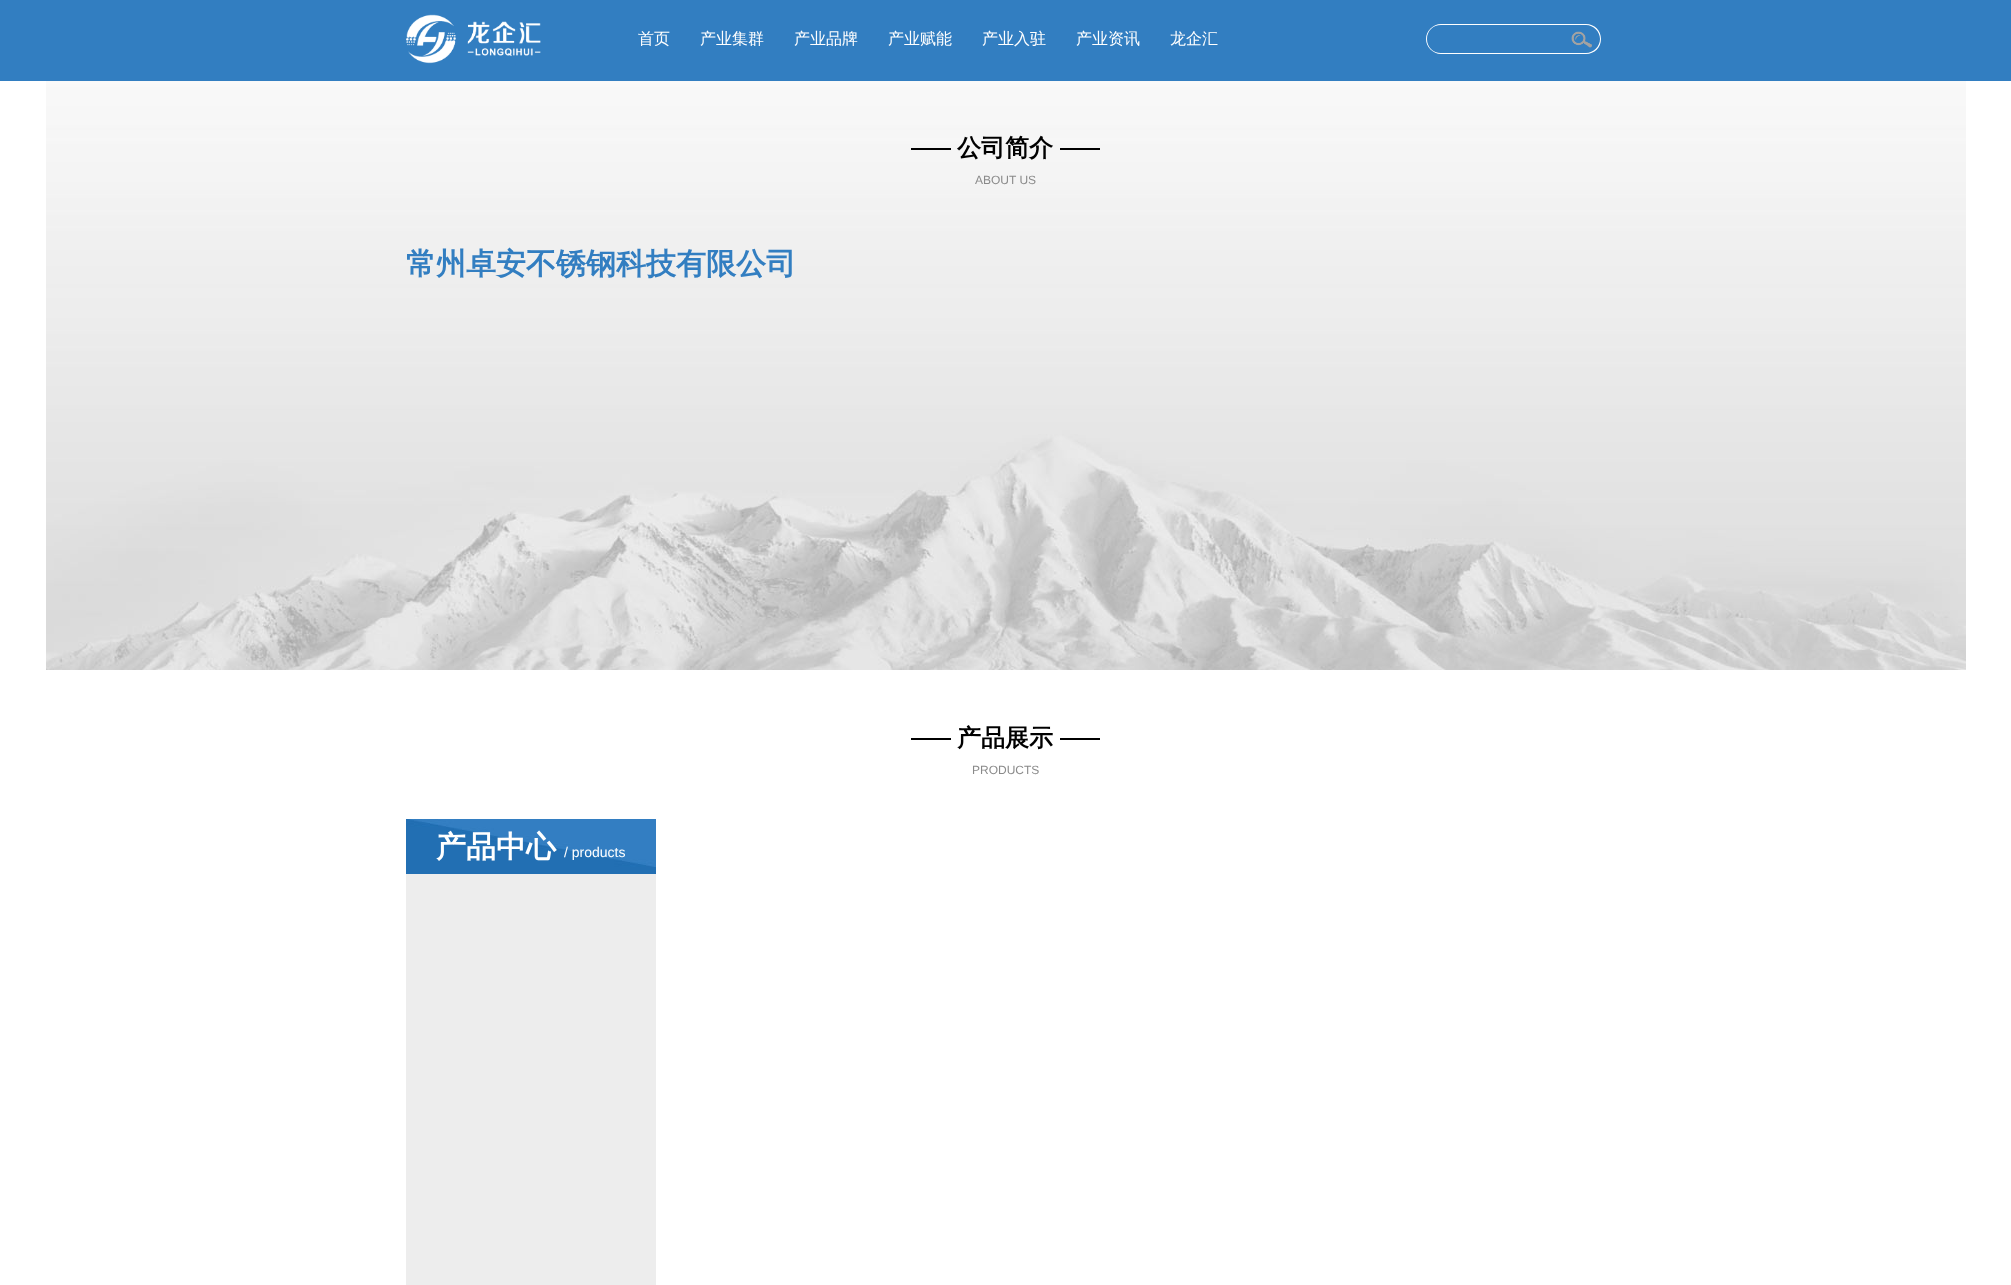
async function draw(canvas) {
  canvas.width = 2011
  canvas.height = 1285
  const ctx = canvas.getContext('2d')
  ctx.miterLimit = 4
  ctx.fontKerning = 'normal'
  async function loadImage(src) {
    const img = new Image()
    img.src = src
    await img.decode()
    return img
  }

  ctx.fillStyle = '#fff'
  ctx.fillRect(0, 0, 2011, 1285)
  ctx.fillStyle = '#327ec1'
  ctx.fillRect(0, 0, 2011, 81)
  ctx.drawImage(await loadImage('image0.png'), 406, 14, 135, 50)
  ctx.font = '500 16px WenQuanYi Zen Hei'
  ctx.fillStyle = '#fff'
  ctx.fillText('首页', 638, 44)
  ctx.fillText('产业集群', 700, 44)
  ctx.fillText('产业品牌', 794, 44)
  ctx.fillText('产业赋能', 888, 44)
  ctx.fillText('产业入驻', 982, 44)
  ctx.fillText('产业资讯', 1076, 44)
  ctx.fillText('龙企汇', 1170, 44)
  ctx.beginPath()
  ctx.moveTo(1441, 24)
  ctx.lineTo(1571, 24)
  ctx.lineTo(1571, 54)
  ctx.lineTo(1441, 54)
  ctx.bezierCurveTo(1433, 54, 1426, 47, 1426, 39)
  ctx.bezierCurveTo(1426, 31, 1433, 24, 1441, 24)
  ctx.closePath()
  ctx.moveTo(1441, 25)
  ctx.lineTo(1571, 25)
  ctx.lineTo(1571, 53)
  ctx.lineTo(1441, 53)
  ctx.bezierCurveTo(1433, 53, 1427, 47, 1427, 39)
  ctx.bezierCurveTo(1427, 31, 1433, 25, 1441, 25)
  ctx.closePath()
  ctx.fill('evenodd')
  ctx.drawImage(await loadImage('image1.png'), 1571, 31, 21, 17)
  ctx.beginPath()
  ctx.moveTo(1571, 24)
  ctx.lineTo(1586, 24)
  ctx.bezierCurveTo(1594.5, 24, 1601, 30.5, 1601, 39)
  ctx.bezierCurveTo(1601, 47.5, 1594.5, 54, 1586, 54)
  ctx.lineTo(1571, 54)
  ctx.closePath()
  ctx.moveTo(1571, 25)
  ctx.lineTo(1586, 25)
  ctx.bezierCurveTo(1593.5, 25, 1600, 31.5, 1600, 39)
  ctx.bezierCurveTo(1600, 46.5, 1593.5, 53, 1586, 53)
  ctx.lineTo(1571, 53)
  ctx.closePath()
  ctx.fill('evenodd')
  ctx.drawImage(await loadImage('image2.png'), 46, 81, 1920, 589)
  ctx.fillStyle = '#000'
  ctx.fillRect(911, 148, 40, 2)
  ctx.font = 'bold 24px WenQuanYi Zen Hei'
  ctx.fillText('公司简介', 957, 156)
  ctx.fillRect(1060, 148, 40, 2)
  ctx.font = '12px Liberation Sans'
  ctx.fillStyle = '#8a8a8a'
  ctx.fillText('ABOUT US', 975, 184)
  ctx.font = 'bold 30px WenQuanYi Zen Hei'
  ctx.fillStyle = '#327ec1'
  ctx.fillText('常州卓安不锈钢科技有限公司', 406, 274)
  ctx.fillStyle = '#000'
  ctx.fillRect(911, 738, 40, 2)
  ctx.font = 'bold 24px WenQuanYi Zen Hei'
  ctx.fillText('产品展示', 957, 746)
  ctx.fillRect(1060, 738, 40, 2)
  ctx.font = '12px Liberation Sans'
  ctx.fillStyle = '#8a8a8a'
  ctx.fillText('PRODUCTS', 972, 774)
  ctx.fillStyle = '#ededed'
  ctx.fillRect(406, 874, 250, 411)
  ctx.drawImage(await loadImage('image3.png'), 406, 819, 250, 55)
  ctx.font = 'bold 30px WenQuanYi Zen Hei'
  ctx.fillStyle = '#fff'
  ctx.fillText('产品中心', 436, 857)
  ctx.font = '14px Liberation Sans'
  ctx.fillText('/ products', 564, 857)
}

draw(document.querySelector('canvas'))
